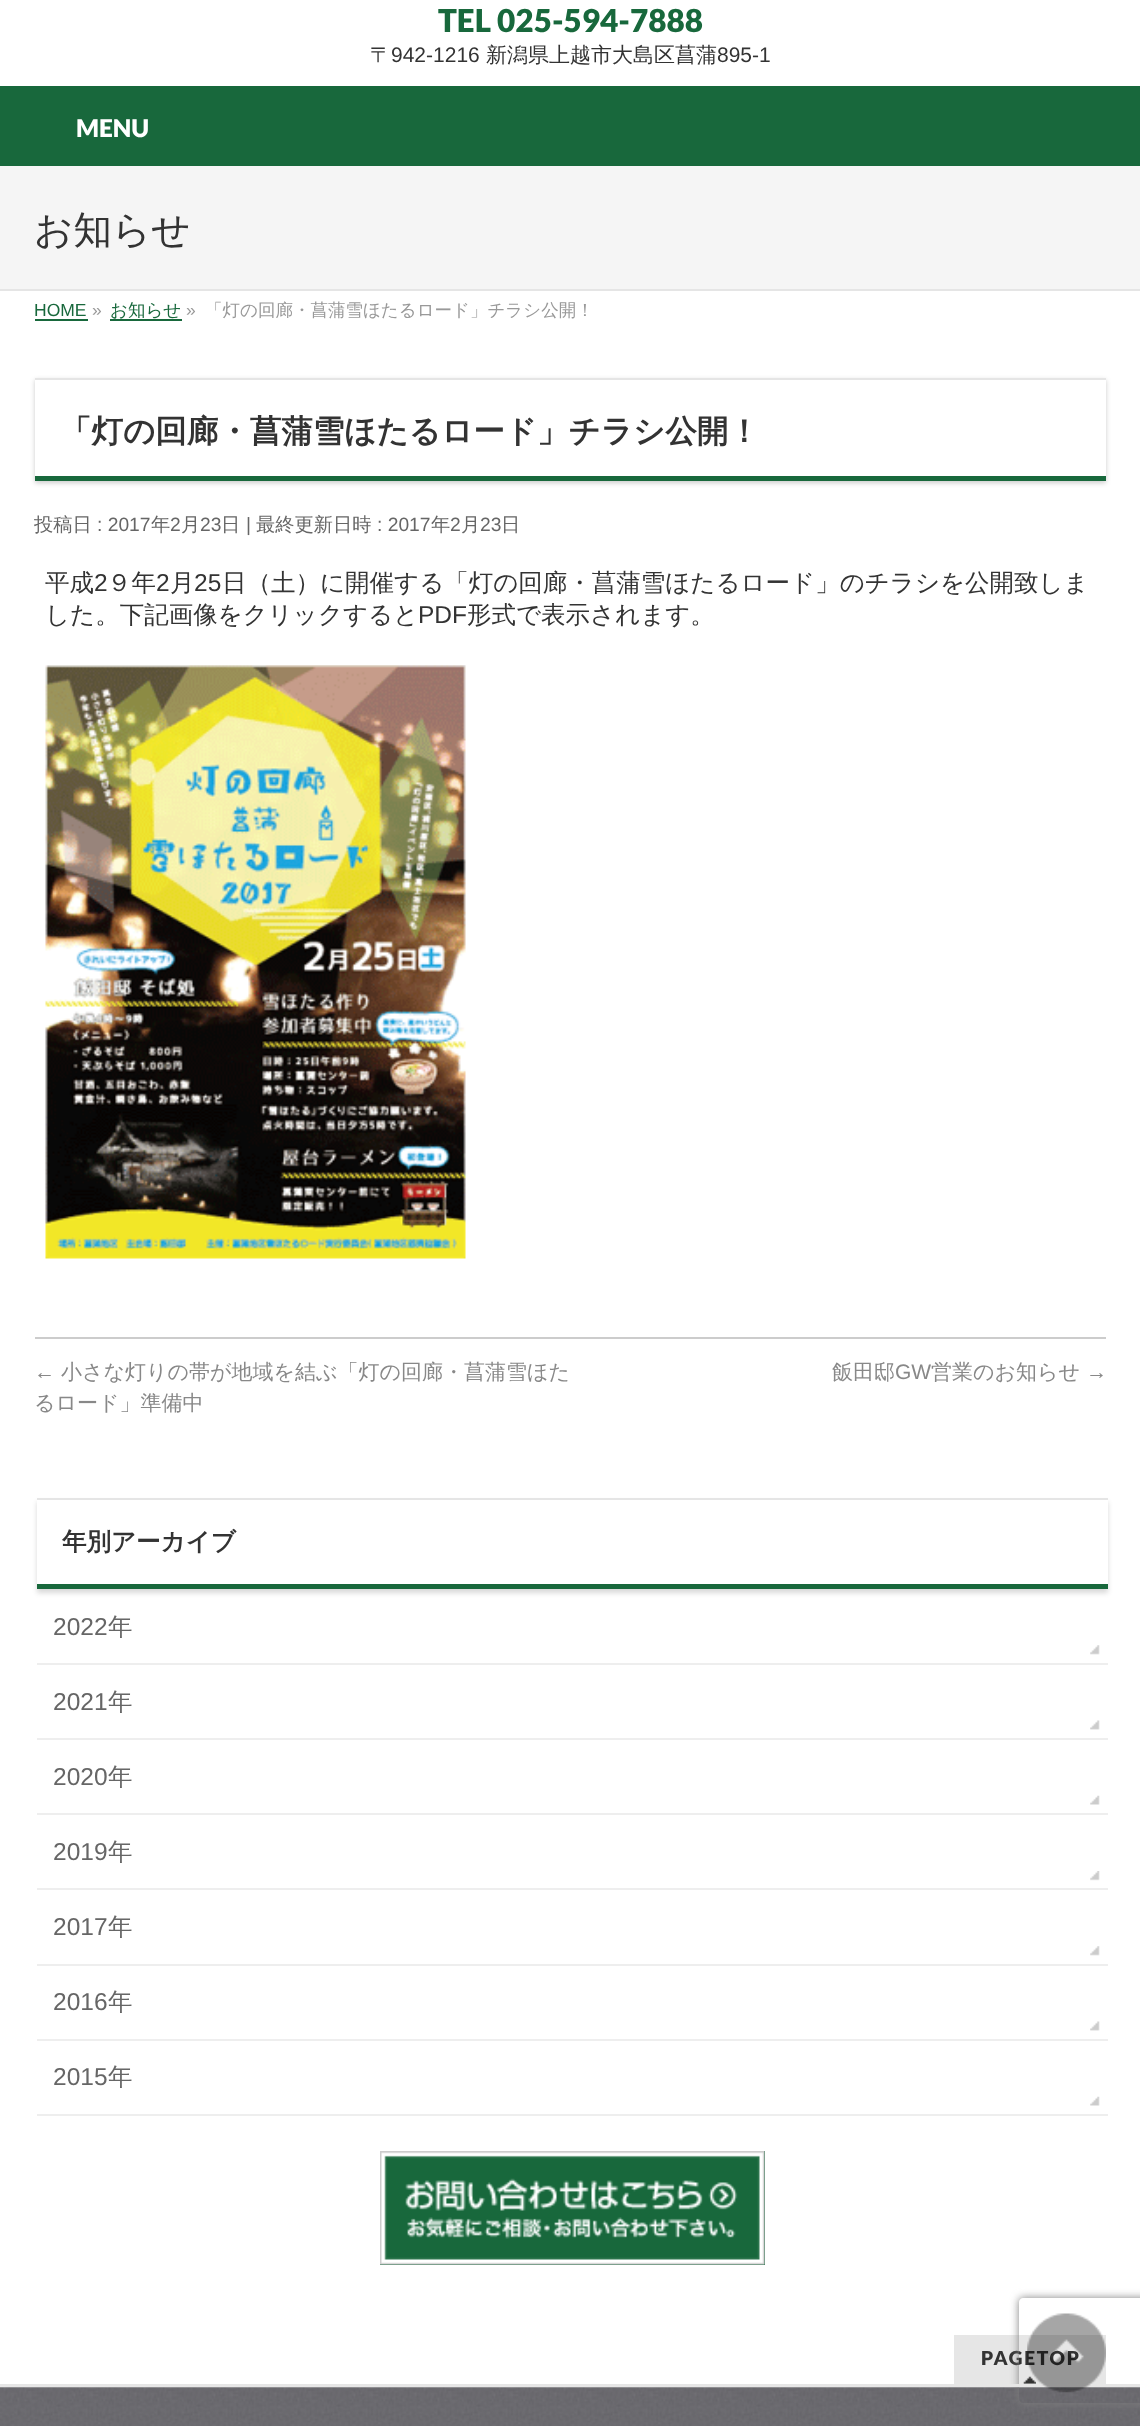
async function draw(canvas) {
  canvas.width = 1140
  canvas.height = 2426
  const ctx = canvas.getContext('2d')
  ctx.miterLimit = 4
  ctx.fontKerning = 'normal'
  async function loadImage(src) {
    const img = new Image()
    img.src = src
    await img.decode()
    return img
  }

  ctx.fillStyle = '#fff'
  ctx.fillRect(0, 0, 1140, 2426)
  ctx.font = '900 31.5px Lato'
  ctx.fillStyle = '#18683c'
  ctx.fillText('TEL 025-594-7888', 438, 32)
  ctx.font = '500 21px WenQuanYi Zen Hei'
  ctx.fillStyle = '#333'
  ctx.fillText('〒', 370, 62)
  ctx.font = '21px Liberation Sans'
  ctx.fillText('942-1216', 391, 62)
  ctx.font = '500 21px WenQuanYi Zen Hei'
  ctx.fillText('新潟県上越市大島区菖蒲', 486, 62)
  ctx.font = '21px Liberation Sans'
  ctx.fillText('895-1', 717, 62)
  ctx.fillStyle = '#18683c'
  ctx.fillRect(0, 86, 1140, 80)
  ctx.font = '900 24.5px Lato'
  ctx.fillStyle = '#fff'
  ctx.fillText('MENU', 76, 137)
  ctx.fillStyle = '#f5f5f5'
  ctx.fillRect(0, 166, 1140, 123)
  ctx.fillStyle = '#e5e5e5'
  ctx.fillRect(0, 289, 1140, 2)
  ctx.font = '500 38.5px WenQuanYi Zen Hei'
  ctx.fillStyle = '#333'
  ctx.fillText('お知らせ', 34, 243)
  ctx.font = '17.5px Liberation Sans'
  ctx.fillStyle = '#18683c'
  ctx.fillText('HOME', 34, 316)
  ctx.fillRect(35, 319, 53, 2)
  ctx.fillStyle = '#999'
  ctx.fillText('»', 92, 316)
  ctx.font = '500 17.5px WenQuanYi Zen Hei'
  ctx.fillStyle = '#18683c'
  ctx.fillText('お知らせ', 110, 316)
  ctx.fillRect(110, 319, 72, 2)
  ctx.font = '17.5px Liberation Sans'
  ctx.fillStyle = '#999'
  ctx.fillText('»', 186, 316)
  ctx.font = '500 17.5px WenQuanYi Zen Hei'
  ctx.fillText('「灯の回廊・菖蒲雪ほたるロード」チラシ公開！', 205, 316)
  ctx.save()
  ctx.beginPath()
  ctx.moveTo(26, 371)
  ctx.lineTo(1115, 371)
  ctx.lineTo(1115, 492)
  ctx.lineTo(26, 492)
  ctx.closePath()
  ctx.moveTo(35, 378)
  ctx.lineTo(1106, 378)
  ctx.lineTo(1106, 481)
  ctx.lineTo(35, 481)
  ctx.closePath()
  ctx.clip('evenodd')
  ctx.fillStyle = '#00000033'
  ctx.filter = 'blur(2.5px)'
  ctx.beginPath()
  ctx.rect(35, 380, 1071, 103)
  ctx.fill()
  ctx.filter = 'none'
  ctx.restore()
  ctx.fillStyle = '#e5e5e5'
  ctx.fillRect(35, 378, 1071, 2)
  ctx.fillStyle = '#18683c'
  ctx.fillRect(35, 476, 1071, 5)
  ctx.font = 'bold 31.5px WenQuanYi Zen Hei'
  ctx.fillStyle = '#333'
  ctx.fillText('「灯の回廊・菖蒲雪ほたるロード」チラシ公開！', 60, 442)
  ctx.font = '500 19.25px WenQuanYi Zen Hei'
  ctx.fillStyle = '#666'
  ctx.fillText('投稿日', 34, 531)
  ctx.font = '19.25px Liberation Sans'
  ctx.fillText(': 2017', 97, 531)
  ctx.font = '500 19.25px WenQuanYi Zen Hei'
  ctx.fillText('年', 151, 531)
  ctx.font = '19.25px Liberation Sans'
  ctx.fillText('2', 170, 531)
  ctx.font = '500 19.25px WenQuanYi Zen Hei'
  ctx.fillText('月', 181, 531)
  ctx.font = '19.25px Liberation Sans'
  ctx.fillText('23', 200, 531)
  ctx.font = '500 19.25px WenQuanYi Zen Hei'
  ctx.fillText('日', 221, 531)
  ctx.font = '19.25px Liberation Sans'
  ctx.fillText('|', 246, 531)
  ctx.font = '500 19.25px WenQuanYi Zen Hei'
  ctx.fillText('最終更新日時', 256, 531)
  ctx.font = '19.25px Liberation Sans'
  ctx.fillText(': 2017', 377, 531)
  ctx.font = '500 19.25px WenQuanYi Zen Hei'
  ctx.fillText('年', 431, 531)
  ctx.font = '19.25px Liberation Sans'
  ctx.fillText('2', 450, 531)
  ctx.font = '500 19.25px WenQuanYi Zen Hei'
  ctx.fillText('月', 461, 531)
  ctx.font = '19.25px Liberation Sans'
  ctx.fillText('23', 480, 531)
  ctx.font = '500 19.25px WenQuanYi Zen Hei'
  ctx.fillText('日', 501, 531)
  ctx.font = '500 24.5px WenQuanYi Zen Hei'
  ctx.fillStyle = '#333'
  ctx.fillText('平成', 45, 591)
  ctx.font = '24.5px Liberation Sans'
  ctx.fillText('2', 94, 591)
  ctx.font = '500 24.5px WenQuanYi Zen Hei'
  ctx.fillText('９年', 107, 591)
  ctx.font = '24.5px Liberation Sans'
  ctx.fillText('2', 156, 591)
  ctx.font = '500 24.5px WenQuanYi Zen Hei'
  ctx.fillText('月', 170, 591)
  ctx.font = '24.5px Liberation Sans'
  ctx.fillText('25', 194, 591)
  ctx.font = '500 24.5px WenQuanYi Zen Hei'
  ctx.fillText('日（土）に開催する「灯の回廊・菖蒲雪ほたるロード」のチラシを公開致しま', 222, 591)
  ctx.fillText('した。下記画像をクリックすると', 45, 623)
  ctx.font = '24.5px Liberation Sans'
  ctx.fillText('PDF', 418, 623)
  ctx.font = '500 24.5px WenQuanYi Zen Hei'
  ctx.fillText('形式で表示されます。', 467, 623)
  ctx.drawImage(await loadImage('image0.png'), 45, 665, 421, 594)
  ctx.fillStyle = '#ccc'
  ctx.fillRect(35, 1337, 1071, 2)
  ctx.font = '21px Liberation Sans'
  ctx.fillStyle = '#888'
  ctx.fillText('←', 34, 1379)
  ctx.font = '500 21px WenQuanYi Zen Hei'
  ctx.fillText('小さな灯りの帯が地域を結ぶ「灯の回廊・菖蒲雪ほた', 61, 1379)
  ctx.fillText('るロード」準備中', 34, 1410)
  ctx.fillText('飯田邸', 832, 1379)
  ctx.font = '21px Liberation Sans'
  ctx.fillText('GW', 895, 1379)
  ctx.font = '500 21px WenQuanYi Zen Hei'
  ctx.fillText('営業のお知らせ', 931, 1379)
  ctx.font = '21px Liberation Sans'
  ctx.fillText('→', 1086, 1379)
  ctx.save()
  ctx.beginPath()
  ctx.moveTo(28, 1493)
  ctx.lineTo(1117, 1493)
  ctx.lineTo(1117, 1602)
  ctx.lineTo(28, 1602)
  ctx.closePath()
  ctx.moveTo(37, 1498)
  ctx.lineTo(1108, 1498)
  ctx.lineTo(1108, 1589)
  ctx.lineTo(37, 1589)
  ctx.closePath()
  ctx.clip('evenodd')
  ctx.fillStyle = '#00000026'
  ctx.filter = 'blur(2.5px)'
  ctx.beginPath()
  ctx.rect(37, 1502, 1071, 91)
  ctx.fill()
  ctx.filter = 'none'
  ctx.restore()
  ctx.fillStyle = '#e5e5e5'
  ctx.fillRect(37, 1498, 1071, 2)
  ctx.fillStyle = '#18683c'
  ctx.fillRect(37, 1584, 1071, 5)
  ctx.font = 'bold 24.5px WenQuanYi Zen Hei'
  ctx.fillStyle = '#333'
  ctx.fillText('年別アーカイブ', 62, 1550)
  ctx.fillStyle = '#eee'
  ctx.fillRect(37, 1663, 1071, 2)
  ctx.drawImage(await loadImage('image1.png'), 1090, 1645, 10, 10)
  ctx.font = '24.5px Liberation Sans'
  ctx.fillStyle = '#666'
  ctx.fillText('2022', 53, 1635)
  ctx.font = '500 24.5px WenQuanYi Zen Hei'
  ctx.fillText('年', 108, 1635)
  ctx.fillStyle = '#eee'
  ctx.fillRect(37, 1738, 1071, 2)
  ctx.drawImage(await loadImage('image2.png'), 1090, 1720, 10, 10)
  ctx.font = '24.5px Liberation Sans'
  ctx.fillStyle = '#666'
  ctx.fillText('2021', 53, 1710)
  ctx.font = '500 24.5px WenQuanYi Zen Hei'
  ctx.fillText('年', 108, 1710)
  ctx.fillStyle = '#eee'
  ctx.fillRect(37, 1813, 1071, 2)
  ctx.drawImage(await loadImage('image3.png'), 1090, 1795, 10, 10)
  ctx.font = '24.5px Liberation Sans'
  ctx.fillStyle = '#666'
  ctx.fillText('2020', 53, 1785)
  ctx.font = '500 24.5px WenQuanYi Zen Hei'
  ctx.fillText('年', 108, 1785)
  ctx.fillStyle = '#eee'
  ctx.fillRect(37, 1888, 1071, 2)
  ctx.drawImage(await loadImage('image4.png'), 1090, 1871, 10, 10)
  ctx.font = '24.5px Liberation Sans'
  ctx.fillStyle = '#666'
  ctx.fillText('2019', 53, 1860)
  ctx.font = '500 24.5px WenQuanYi Zen Hei'
  ctx.fillText('年', 108, 1860)
  ctx.fillStyle = '#eee'
  ctx.fillRect(37, 1964, 1071, 2)
  ctx.drawImage(await loadImage('image1.png'), 1090, 1946, 10, 10)
  ctx.font = '24.5px Liberation Sans'
  ctx.fillStyle = '#666'
  ctx.fillText('2017', 53, 1935)
  ctx.font = '500 24.5px WenQuanYi Zen Hei'
  ctx.fillText('年', 108, 1935)
  ctx.fillStyle = '#eee'
  ctx.fillRect(37, 2039, 1071, 2)
  ctx.drawImage(await loadImage('image2.png'), 1090, 2021, 10, 10)
  ctx.font = '24.5px Liberation Sans'
  ctx.fillStyle = '#666'
  ctx.fillText('2016', 53, 2010)
  ctx.font = '500 24.5px WenQuanYi Zen Hei'
  ctx.fillText('年', 108, 2010)
  ctx.fillStyle = '#eee'
  ctx.fillRect(37, 2114, 1071, 2)
  ctx.drawImage(await loadImage('image3.png'), 1090, 2096, 10, 10)
  ctx.font = '24.5px Liberation Sans'
  ctx.fillStyle = '#666'
  ctx.fillText('2015', 53, 2085)
  ctx.font = '500 24.5px WenQuanYi Zen Hei'
  ctx.fillText('年', 108, 2085)
  ctx.fillStyle = '#18683c'
  ctx.fillRect(380, 2151, 385, 114)
  ctx.drawImage(await loadImage('image5.png'), 380, 2151, 385, 114)
  ctx.fillStyle = '#e6e6e6'
  ctx.fillRect(954, 2335, 152, 49)
  ctx.drawImage(await loadImage('image7.png'), 1023, 2376, 13, 8)
  ctx.letterSpacing = '1.75px'
  ctx.font = '900 19.25px Lato'
  ctx.fillStyle = '#333'
  ctx.fillText('PAGETOP', 981, 2365)
  ctx.drawImage(await loadImage('image8.png'), 0, 2387, 1140, 39)
  ctx.save()
  ctx.beginPath()
  ctx.moveTo(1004, 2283)
  ctx.lineTo(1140, 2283)
  ctx.lineTo(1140, 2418)
  ctx.lineTo(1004, 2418)
  ctx.closePath()
  ctx.moveTo(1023, 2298)
  ctx.lineTo(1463, 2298)
  ctx.bezierCurveTo(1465, 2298, 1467, 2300, 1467, 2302)
  ctx.lineTo(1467, 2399)
  ctx.bezierCurveTo(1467, 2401, 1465, 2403, 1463, 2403)
  ctx.lineTo(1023, 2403)
  ctx.bezierCurveTo(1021, 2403, 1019, 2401, 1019, 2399)
  ctx.lineTo(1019, 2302)
  ctx.bezierCurveTo(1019, 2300, 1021, 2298, 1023, 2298)
  ctx.closePath()
  ctx.clip('evenodd')
  ctx.fillStyle = '#808080'
  ctx.filter = 'blur(4.5px)'
  ctx.beginPath()
  ctx.roundRect(1019, 2298, 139, 105, 4)
  ctx.fill()
  ctx.filter = 'none'
  ctx.restore()
  ctx.fillStyle = '#e6e6e6'
  ctx.fillRect(0, 2384, 1140, 3)
  ctx.drawImage(await loadImage('image6.png'), 1027, 2313, 79, 80)
}

draw(document.querySelector('canvas'))
